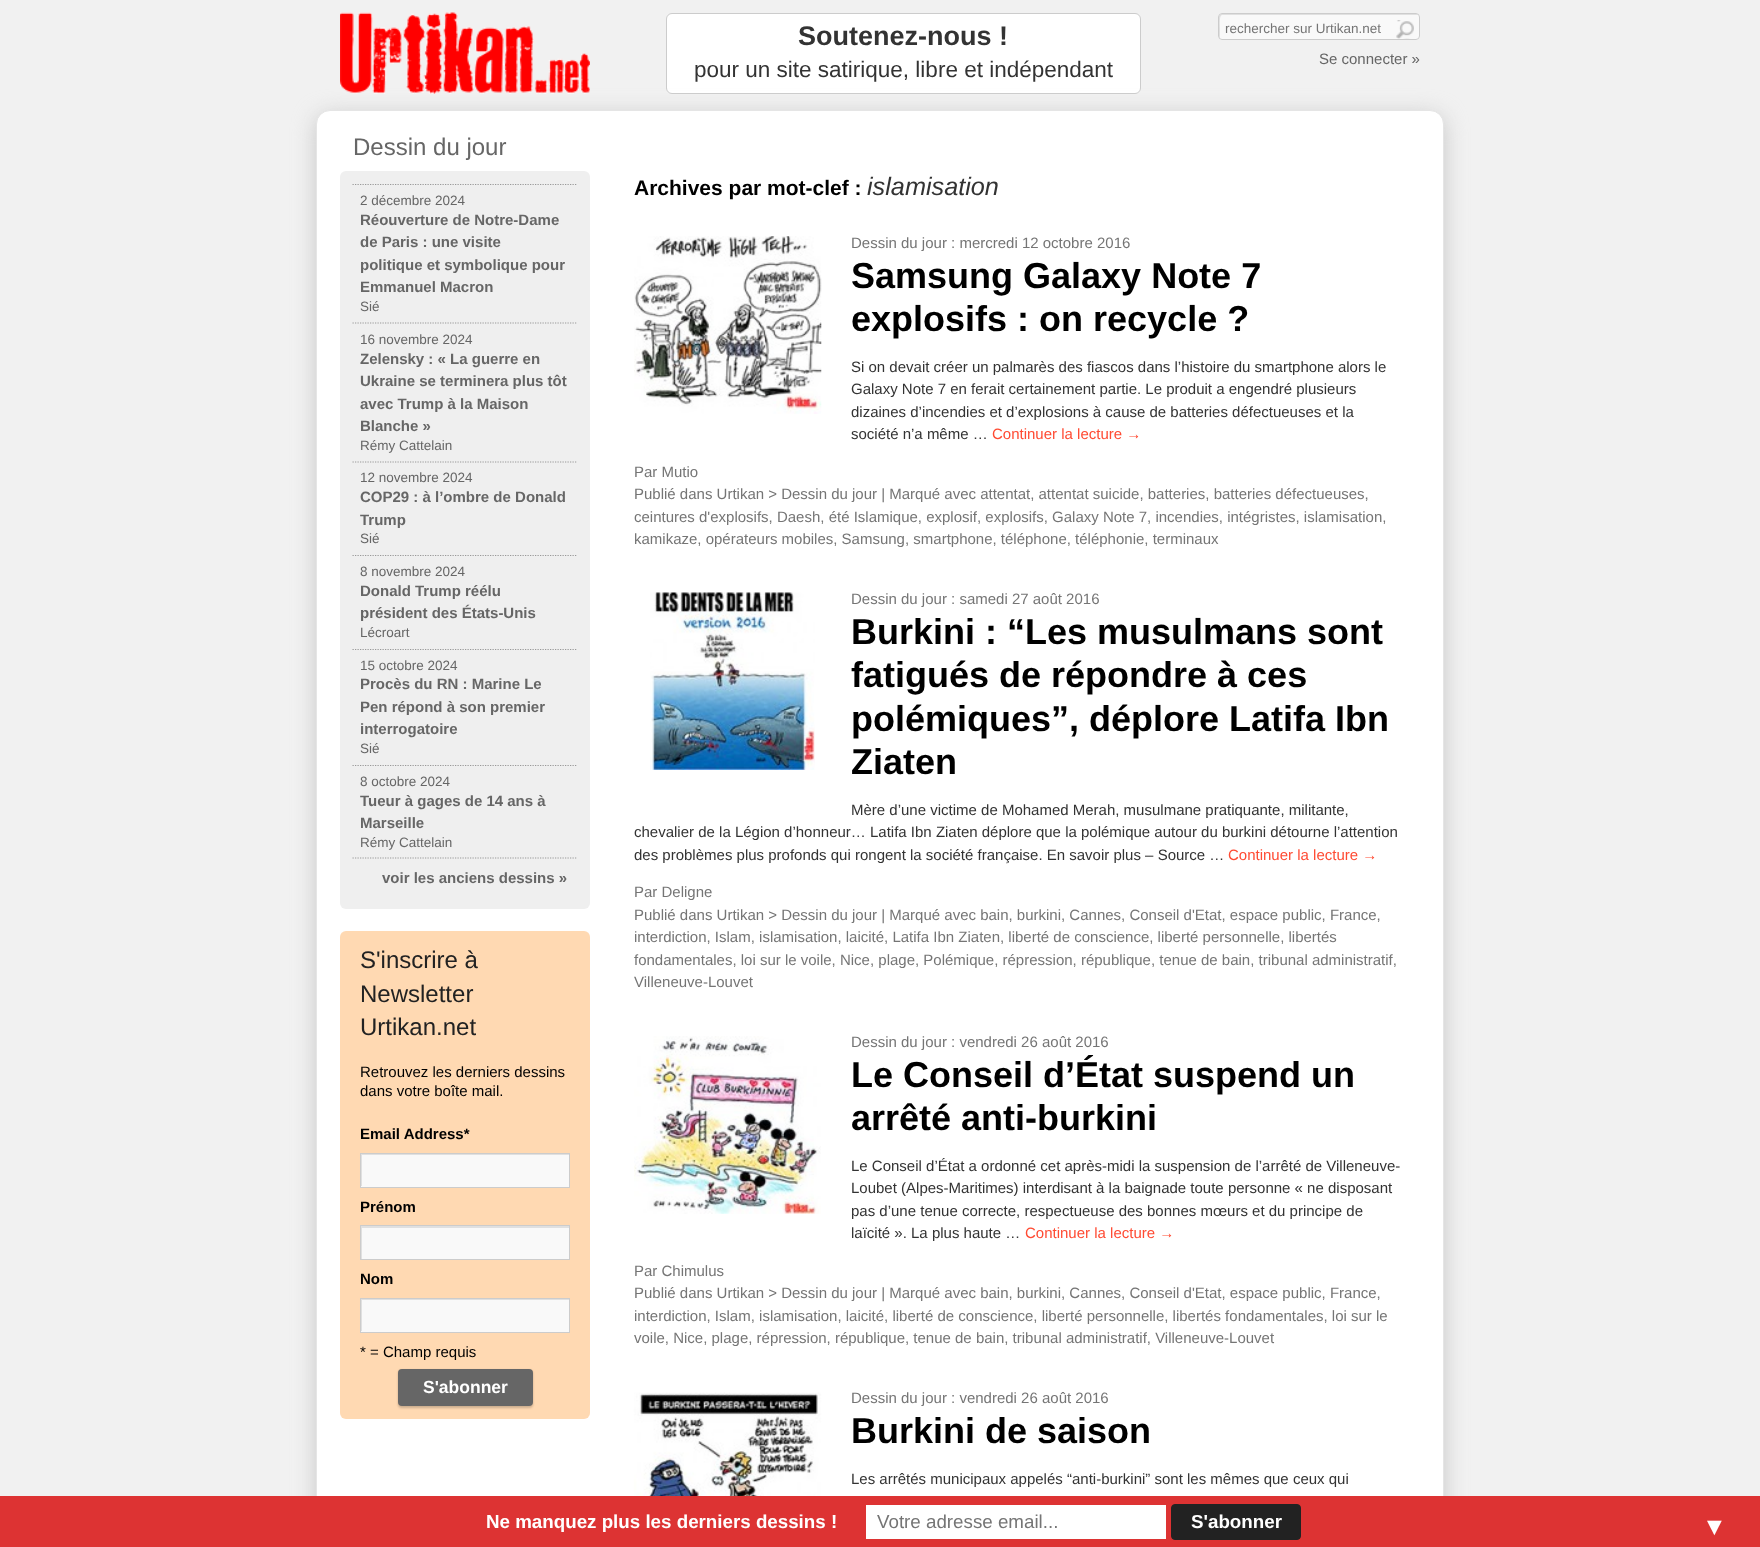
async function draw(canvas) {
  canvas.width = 1760
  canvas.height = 1547
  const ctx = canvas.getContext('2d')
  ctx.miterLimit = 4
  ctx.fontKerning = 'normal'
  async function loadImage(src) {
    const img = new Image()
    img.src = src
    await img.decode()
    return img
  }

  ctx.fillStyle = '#f1f1f1'
  ctx.fillRect(0, 0, 1760, 1547)
  ctx.drawImage(await loadImage('image0.png'), 340, 12, 250, 82)
  ctx.fillStyle = '#fff'
  ctx.beginPath()
  ctx.roundRect(666.5, 13.5, 474, 80, 5.5)
  ctx.fill()
  ctx.strokeStyle = '#ccc'
  ctx.stroke()
  ctx.font = 'bold 27px Liberation Sans'
  ctx.fillStyle = '#333'
  ctx.fillText('Soutenez-nous !', 798, 45)
  ctx.font = '22.5px Liberation Sans'
  ctx.fillText('pour un site satirique, libre et indépendant', 694, 77)
  ctx.fillStyle = '#f9f9f9'
  ctx.beginPath()
  ctx.roundRect(1218, 13, 202, 27, 4)
  ctx.fill()
  ctx.fillStyle = '#e0e0e0'
  ctx.beginPath()
  ctx.moveTo(1222, 15)
  ctx.lineTo(1419, 15)
  ctx.lineTo(1416, 14)
  ctx.lineTo(1221, 14)
  ctx.lineTo(1219, 16)
  ctx.bezierCurveTo(1219, 18, 1218, 37, 1220, 39)
  ctx.lineTo(1220, 28)
  ctx.bezierCurveTo(1220, 26, 1219, 15, 1222, 15)
  ctx.closePath()
  ctx.fill()
  ctx.beginPath()
  ctx.roundRect(1218.5, 13.5, 201, 26, 3.5)
  ctx.stroke()
  ctx.font = '13.5px Liberation Sans'
  ctx.fillStyle = '#757575'
  ctx.fillText('rechercher sur Urtikan.net', 1225, 33)
  ctx.drawImage(await loadImage('image1.png'), 1396, 20, 18, 19)
  ctx.font = '15px Liberation Sans'
  ctx.fillStyle = '#666'
  ctx.fillText('Se connecter »', 1319, 64)
  ctx.fillStyle = '#c8c8c8'
  ctx.filter = 'blur(11px)'
  ctx.beginPath()
  ctx.roundRect(316, 115, 1128, 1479, 14)
  ctx.fill()
  ctx.filter = 'none'
  ctx.fillStyle = '#fff'
  ctx.beginPath()
  ctx.roundRect(316.5, 110.5, 1127, 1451, 13.5)
  ctx.fill()
  ctx.strokeStyle = '#e5e5e5'
  ctx.stroke()
  ctx.font = '24px Liberation Sans'
  ctx.fillStyle = '#666'
  ctx.fillText('Dessin du jour', 353, 155)
  ctx.fillStyle = '#efefef'
  ctx.beginPath()
  ctx.roundRect(340, 171, 250, 738, 6)
  ctx.fill()
  ctx.beginPath()
  ctx.moveTo(352.5, 184.5)
  ctx.lineTo(577.5, 184.5)
  ctx.strokeStyle = '#999'
  ctx.lineWidth = 1.2
  ctx.setLineDash([1.25, 1.25])
  ctx.stroke()
  ctx.fillRect(353, 185, 225, 1)
  ctx.font = '13.5px Liberation Sans'
  ctx.fillStyle = '#666'
  ctx.fillText('2 décembre 2024', 360, 205)
  ctx.font = 'bold 15px Liberation Sans'
  ctx.fillText('Réouverture de Notre-Dame', 360, 225)
  ctx.fillText('de Paris : une visite', 360, 247)
  ctx.fillText('politique et symbolique pour', 360, 270)
  ctx.fillText('Emmanuel Macron', 360, 292)
  ctx.font = '13.5px Liberation Sans'
  ctx.fillText('Sié', 360, 311)
  ctx.beginPath()
  ctx.moveTo(352.5, 323)
  ctx.lineTo(577.5, 323)
  ctx.stroke()
  ctx.fillText('16 novembre 2024', 360, 344)
  ctx.font = 'bold 15px Liberation Sans'
  ctx.fillText('Zelensky : « La guerre en', 360, 364)
  ctx.fillText('Ukraine se terminera plus tôt', 360, 386)
  ctx.fillText('avec Trump à la Maison', 360, 409)
  ctx.fillText('Blanche »', 360, 431)
  ctx.font = '13.5px Liberation Sans'
  ctx.fillText('Rémy Cattelain', 360, 450)
  ctx.beginPath()
  ctx.moveTo(352.5, 462)
  ctx.lineTo(577.5, 462)
  ctx.stroke()
  ctx.fillText('12 novembre 2024', 360, 482)
  ctx.font = 'bold 15px Liberation Sans'
  ctx.fillText('COP29 : à l’ombre de Donald', 360, 502)
  ctx.fillText('Trump', 360, 525)
  ctx.font = '13.5px Liberation Sans'
  ctx.fillText('Sié', 360, 543)
  ctx.beginPath()
  ctx.moveTo(352.5, 555.5)
  ctx.lineTo(577.5, 555.5)
  ctx.stroke()
  ctx.fillStyle = '#efefef'
  ctx.fillRect(353, 556, 225, 1)
  ctx.fillStyle = '#666'
  ctx.fillText('8 novembre 2024', 360, 576)
  ctx.font = 'bold 15px Liberation Sans'
  ctx.fillText('Donald Trump réélu', 360, 596)
  ctx.fillText('président des États-Unis', 360, 618)
  ctx.font = '13.5px Liberation Sans'
  ctx.fillText('Lécroart', 360, 637)
  ctx.beginPath()
  ctx.moveTo(352.5, 649.5)
  ctx.lineTo(577.5, 649.5)
  ctx.stroke()
  ctx.fillStyle = '#efefef'
  ctx.fillRect(353, 650, 225, 1)
  ctx.fillStyle = '#666'
  ctx.fillText('15 octobre 2024', 360, 670)
  ctx.font = 'bold 15px Liberation Sans'
  ctx.fillText('Procès du RN : Marine Le', 360, 689)
  ctx.fillText('Pen répond à son premier', 360, 712)
  ctx.fillText('interrogatoire', 360, 734)
  ctx.font = '13.5px Liberation Sans'
  ctx.fillText('Sié', 360, 753)
  ctx.beginPath()
  ctx.moveTo(352.5, 765.5)
  ctx.lineTo(577.5, 765.5)
  ctx.stroke()
  ctx.fillStyle = '#efefef'
  ctx.fillRect(353, 766, 225, 1)
  ctx.fillStyle = '#666'
  ctx.fillText('8 octobre 2024', 360, 786)
  ctx.font = 'bold 15px Liberation Sans'
  ctx.fillText('Tueur à gages de 14 ans à', 360, 806)
  ctx.fillText('Marseille', 360, 828)
  ctx.font = '13.5px Liberation Sans'
  ctx.fillText('Rémy Cattelain', 360, 847)
  ctx.beginPath()
  ctx.moveTo(352.5, 858)
  ctx.lineTo(577.5, 858)
  ctx.stroke()
  ctx.font = 'bold 15px Liberation Sans'
  ctx.fillText('voir les anciens dessins »', 382, 883)
  ctx.fillStyle = '#ffd9b2'
  ctx.beginPath()
  ctx.roundRect(340, 931, 250, 488, 6)
  ctx.fill()
  ctx.font = '24px Liberation Sans'
  ctx.fillStyle = '#222'
  ctx.fillText('S\'inscrire à', 360, 968)
  ctx.fillText('Newsletter', 360, 1002)
  ctx.fillText('Urtikan.net', 360, 1035)
  ctx.font = '15px Liberation Sans'
  ctx.fillStyle = '#000'
  ctx.fillText('Retrouvez les derniers dessins', 360, 1077)
  ctx.fillText('dans votre boîte mail.', 360, 1096)
  ctx.font = 'bold 15px Liberation Sans'
  ctx.fillText('Email Address*', 360, 1139)
  ctx.fillStyle = '#f9f9f9'
  ctx.fillRect(361, 1155, 208, 32)
  ctx.save()
  ctx.beginPath()
  ctx.rect(361, 1154, 208, 32)
  ctx.clip()
  ctx.fillStyle = '#e0e0e0'
  ctx.beginPath()
  ctx.moveTo(238, 1030)
  ctx.lineTo(692, 1030)
  ctx.lineTo(692, 1310)
  ctx.lineTo(238, 1310)
  ctx.closePath()
  ctx.moveTo(362, 1155)
  ctx.lineTo(570, 1155)
  ctx.lineTo(570, 1188)
  ctx.lineTo(362, 1188)
  ctx.closePath()
  ctx.fill('evenodd')
  ctx.restore()
  ctx.strokeStyle = '#ccc'
  ctx.lineWidth = 1
  ctx.setLineDash([])
  ctx.strokeRect(360.5, 1153.5, 209, 34)
  ctx.fillStyle = '#000'
  ctx.fillText('Prénom', 360, 1212)
  ctx.fillStyle = '#f9f9f9'
  ctx.fillRect(362, 1228, 207, 31)
  ctx.save()
  ctx.beginPath()
  ctx.rect(361, 1226, 208, 33)
  ctx.clip()
  ctx.fillStyle = '#e0e0e0'
  ctx.beginPath()
  ctx.moveTo(238, 1102)
  ctx.lineTo(692, 1102)
  ctx.lineTo(692, 1382)
  ctx.lineTo(238, 1382)
  ctx.closePath()
  ctx.moveTo(362, 1228)
  ctx.lineTo(570, 1228)
  ctx.lineTo(570, 1260)
  ctx.lineTo(362, 1260)
  ctx.closePath()
  ctx.fill('evenodd')
  ctx.restore()
  ctx.strokeRect(360.5, 1225.5, 209, 34)
  ctx.fillStyle = '#000'
  ctx.fillText('Nom', 360, 1284)
  ctx.fillStyle = '#f9f9f9'
  ctx.fillRect(361, 1300, 208, 32)
  ctx.save()
  ctx.beginPath()
  ctx.rect(361, 1299, 208, 32)
  ctx.clip()
  ctx.fillStyle = '#e0e0e0'
  ctx.beginPath()
  ctx.moveTo(238, 1175)
  ctx.lineTo(692, 1175)
  ctx.lineTo(692, 1455)
  ctx.lineTo(238, 1455)
  ctx.closePath()
  ctx.moveTo(362, 1300)
  ctx.lineTo(570, 1300)
  ctx.lineTo(570, 1332)
  ctx.lineTo(362, 1332)
  ctx.closePath()
  ctx.fill('evenodd')
  ctx.restore()
  ctx.strokeRect(360.5, 1298.5, 209, 34)
  ctx.font = '15px Liberation Sans'
  ctx.fillStyle = '#000'
  ctx.fillText('* = Champ requis', 360, 1357)
  ctx.fillStyle = '#00000033'
  ctx.filter = 'blur(1px)'
  ctx.beginPath()
  ctx.roundRect(398, 1370, 135, 38, 4)
  ctx.fill()
  ctx.filter = 'none'
  ctx.fillStyle = '#666'
  ctx.beginPath()
  ctx.roundRect(398, 1369, 135, 37, 4)
  ctx.fill()
  ctx.font = 'bold 17.5px Liberation Sans'
  ctx.fillStyle = '#fff'
  ctx.fillText('S\'abonner', 423, 1393)
  ctx.font = 'bold 21px Liberation Sans'
  ctx.fillStyle = '#000'
  ctx.fillText('Archives par mot-clef :', 634, 195)
  ctx.font = 'italic 25.25px Liberation Sans'
  ctx.fillStyle = '#333'
  ctx.fillText('islamisation', 867, 195)
  ctx.drawImage(await loadImage('image2.png'), 634, 236, 188, 178)
  ctx.font = '15px Liberation Sans'
  ctx.fillStyle = '#757575'
  ctx.fillText('Dessin du jour : mercredi 12 octobre 2016', 851, 248)
  ctx.font = 'bold 36px Liberation Sans'
  ctx.fillStyle = '#000'
  ctx.fillText('Samsung Galaxy Note 7', 851, 288)
  ctx.fillText('explosifs : on recycle ?', 851, 331)
  ctx.font = '15px Liberation Sans'
  ctx.fillStyle = '#333'
  ctx.fillText('Si on devait créer un palmarès des fiascos dans l’histoire du smartphone alors le', 851, 372)
  ctx.fillText('Galaxy Note 7 en ferait certainement partie. Le produit a engendré plusieurs', 851, 394)
  ctx.fillText('dizaines d’incendies et d’explosions à cause de batteries défectueuses et la', 851, 417)
  ctx.fillText('société n’a même …', 851, 439)
  ctx.fillStyle = '#ff4b33'
  ctx.fillText('Continuer la lecture →', 992, 439)
  ctx.fillStyle = '#757575'
  ctx.fillText('Par Mutio', 634, 477)
  ctx.fillText('Publié dans Urtikan > Dessin du jour | Marqué avec attentat, attentat suicide, batteries, batteries défectueuses,', 634, 499)
  ctx.fillText('ceintures d\'explosifs, Daesh, été Islamique, explosif, explosifs, Galaxy Note 7, incendies, intégristes, islamisation,', 634, 522)
  ctx.fillText('kamikaze, opérateurs mobiles, Samsung, smartphone, téléphone, téléphonie, terminaux', 634, 544)
  ctx.drawImage(await loadImage('image3.png'), 650, 592, 165, 178)
  ctx.fillText('Dessin du jour : samedi 27 août 2016', 851, 604)
  ctx.font = 'bold 36px Liberation Sans'
  ctx.fillStyle = '#000'
  ctx.fillText('Burkini : “Les musulmans sont', 851, 644)
  ctx.fillText('fatigués de répondre à ces', 851, 687)
  ctx.fillText('polémiques”, déplore Latifa Ibn', 851, 731)
  ctx.fillText('Ziaten', 851, 774)
  ctx.font = '15px Liberation Sans'
  ctx.fillStyle = '#333'
  ctx.fillText('Mère d’une victime de Mohamed Merah, musulmane pratiquante, militante,', 851, 815)
  ctx.fillText('chevalier de la Légion d’honneur… Latifa Ibn Ziaten déplore que la polémique autour du burkini détourne l’attention', 634, 837)
  ctx.fillText('des problèmes plus profonds qui rongent la société française. En savoir plus – Source …', 634, 860)
  ctx.fillStyle = '#ff4b33'
  ctx.fillText('Continuer la lecture →', 1228, 860)
  ctx.fillStyle = '#757575'
  ctx.fillText('Par Deligne', 634, 897)
  ctx.fillText('Publié dans Urtikan > Dessin du jour | Marqué avec bain, burkini, Cannes, Conseil d\'Etat, espace public, France,', 634, 920)
  ctx.fillText('interdiction, Islam, islamisation, laicité, Latifa Ibn Ziaten, liberté de conscience, liberté personnelle, libertés', 634, 942)
  ctx.fillText('fondamentales, loi sur le voile, Nice, plage, Polémique, répression, république, tenue de bain, tribunal administratif,', 634, 965)
  ctx.fillText('Villeneuve-Louvet', 634, 987)
  ctx.drawImage(await loadImage('image4.png'), 634, 1036, 187, 178)
  ctx.fillText('Dessin du jour : vendredi 26 août 2016', 851, 1047)
  ctx.font = 'bold 36px Liberation Sans'
  ctx.fillStyle = '#000'
  ctx.fillText('Le Conseil d’État suspend un', 851, 1087)
  ctx.fillText('arrêté anti-burkini', 851, 1130)
  ctx.font = '15px Liberation Sans'
  ctx.fillStyle = '#333'
  ctx.fillText('Le Conseil d’État a ordonné cet après-midi la suspension de l’arrêté de Villeneuve-', 851, 1171)
  ctx.fillText('Loubet (Alpes-Maritimes) interdisant à la baignade toute personne « ne disposant', 851, 1193)
  ctx.fillText('pas d’une tenue correcte, respectueuse des bonnes mœurs et du principe de', 851, 1216)
  ctx.fillText('laïcité ». La plus haute …', 851, 1238)
  ctx.fillStyle = '#ff4b33'
  ctx.fillText('Continuer la lecture →', 1025, 1238)
  ctx.fillStyle = '#757575'
  ctx.fillText('Par Chimulus', 634, 1276)
  ctx.fillText('Publié dans Urtikan > Dessin du jour | Marqué avec bain, burkini, Cannes, Conseil d\'Etat, espace public, France,', 634, 1298)
  ctx.fillText('interdiction, Islam, islamisation, laicité, liberté de conscience, liberté personnelle, libertés fondamentales, loi sur le', 634, 1321)
  ctx.fillText('voile, Nice, plage, répression, république, tenue de bain, tribunal administratif, Villeneuve-Louvet', 634, 1343)
  ctx.drawImage(await loadImage('image5.png'), 633, 1392, 189, 104)
  ctx.fillText('Dessin du jour : vendredi 26 août 2016', 851, 1403)
  ctx.font = 'bold 36px Liberation Sans'
  ctx.fillStyle = '#000'
  ctx.fillText('Burkini de saison', 851, 1443)
  ctx.font = '15px Liberation Sans'
  ctx.fillStyle = '#333'
  ctx.fillText('Les arrêtés municipaux appelés “anti-burkini” sont les mêmes que ceux qui', 851, 1484)
  ctx.fillStyle = '#d33'
  ctx.fillRect(0, 1496, 1760, 51)
  ctx.font = 'bold 18.75px Liberation Sans'
  ctx.fillStyle = '#fff'
  ctx.fillText('Ne manquez plus les derniers dessins !', 486, 1528)
  ctx.fillRect(866, 1505, 300, 34)
  ctx.font = '18.75px Liberation Sans'
  ctx.fillStyle = '#757575'
  ctx.fillText('Votre adresse email...', 877, 1528)
  ctx.fillStyle = '#222'
  ctx.beginPath()
  ctx.roundRect(1171.5, 1504.5, 129, 35, 3.5)
  ctx.fill()
  ctx.strokeStyle = '#222'
  ctx.stroke()
  ctx.font = 'bold 18.75px Liberation Sans'
  ctx.fillStyle = '#fff'
  ctx.fillText('S\'abonner', 1191, 1528)
  ctx.font = '25px Liberation Sans'
  ctx.fillText('▼', 1702, 1535)
}

draw(document.querySelector('canvas'))
